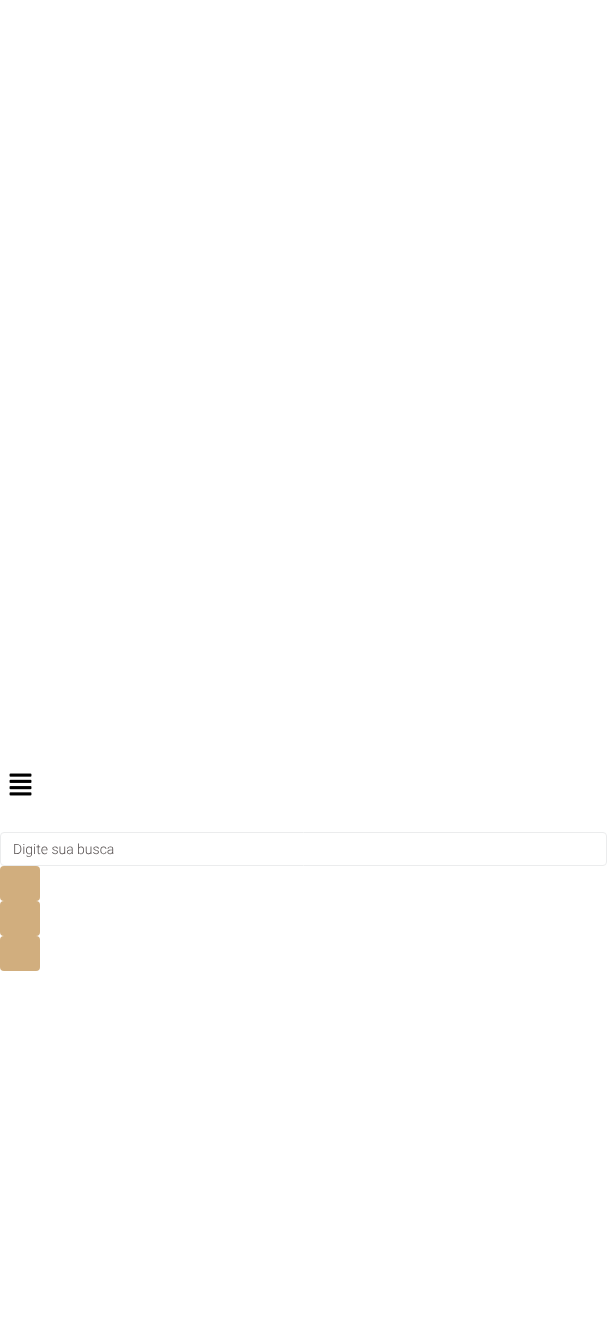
async function draw(canvas) {
  canvas.width = 607
  canvas.height = 1332
  const ctx = canvas.getContext('2d')
  ctx.miterLimit = 4
  ctx.fontKerning = 'normal'
  async function loadImage(src) {
    const img = new Image()
    img.src = src
    await img.decode()
    return img
  }

  ctx.fillStyle = '#fff'
  ctx.fillRect(0, 0, 607, 1332)
  ctx.drawImage(await loadImage('image0.png'), 9, 773, 23, 23)
  ctx.beginPath()
  ctx.roundRect(0.5, 832.5, 606, 33, 3.5)
  ctx.strokeStyle = '#ebeced'
  ctx.stroke()
  ctx.font = '300 14px Roboto'
  ctx.fillStyle = '#575151'
  ctx.fillText('Digite sua busca', 13, 854)
  ctx.fillStyle = '#d1ae7e'
  ctx.beginPath()
  ctx.roundRect(0, 866, 40, 35, 4)
  ctx.fill()
  ctx.beginPath()
  ctx.roundRect(0, 901, 40, 35, 4)
  ctx.fill()
  ctx.beginPath()
  ctx.roundRect(0, 936, 40, 35, 4)
  ctx.fill()
}

draw(document.querySelector('canvas'))
